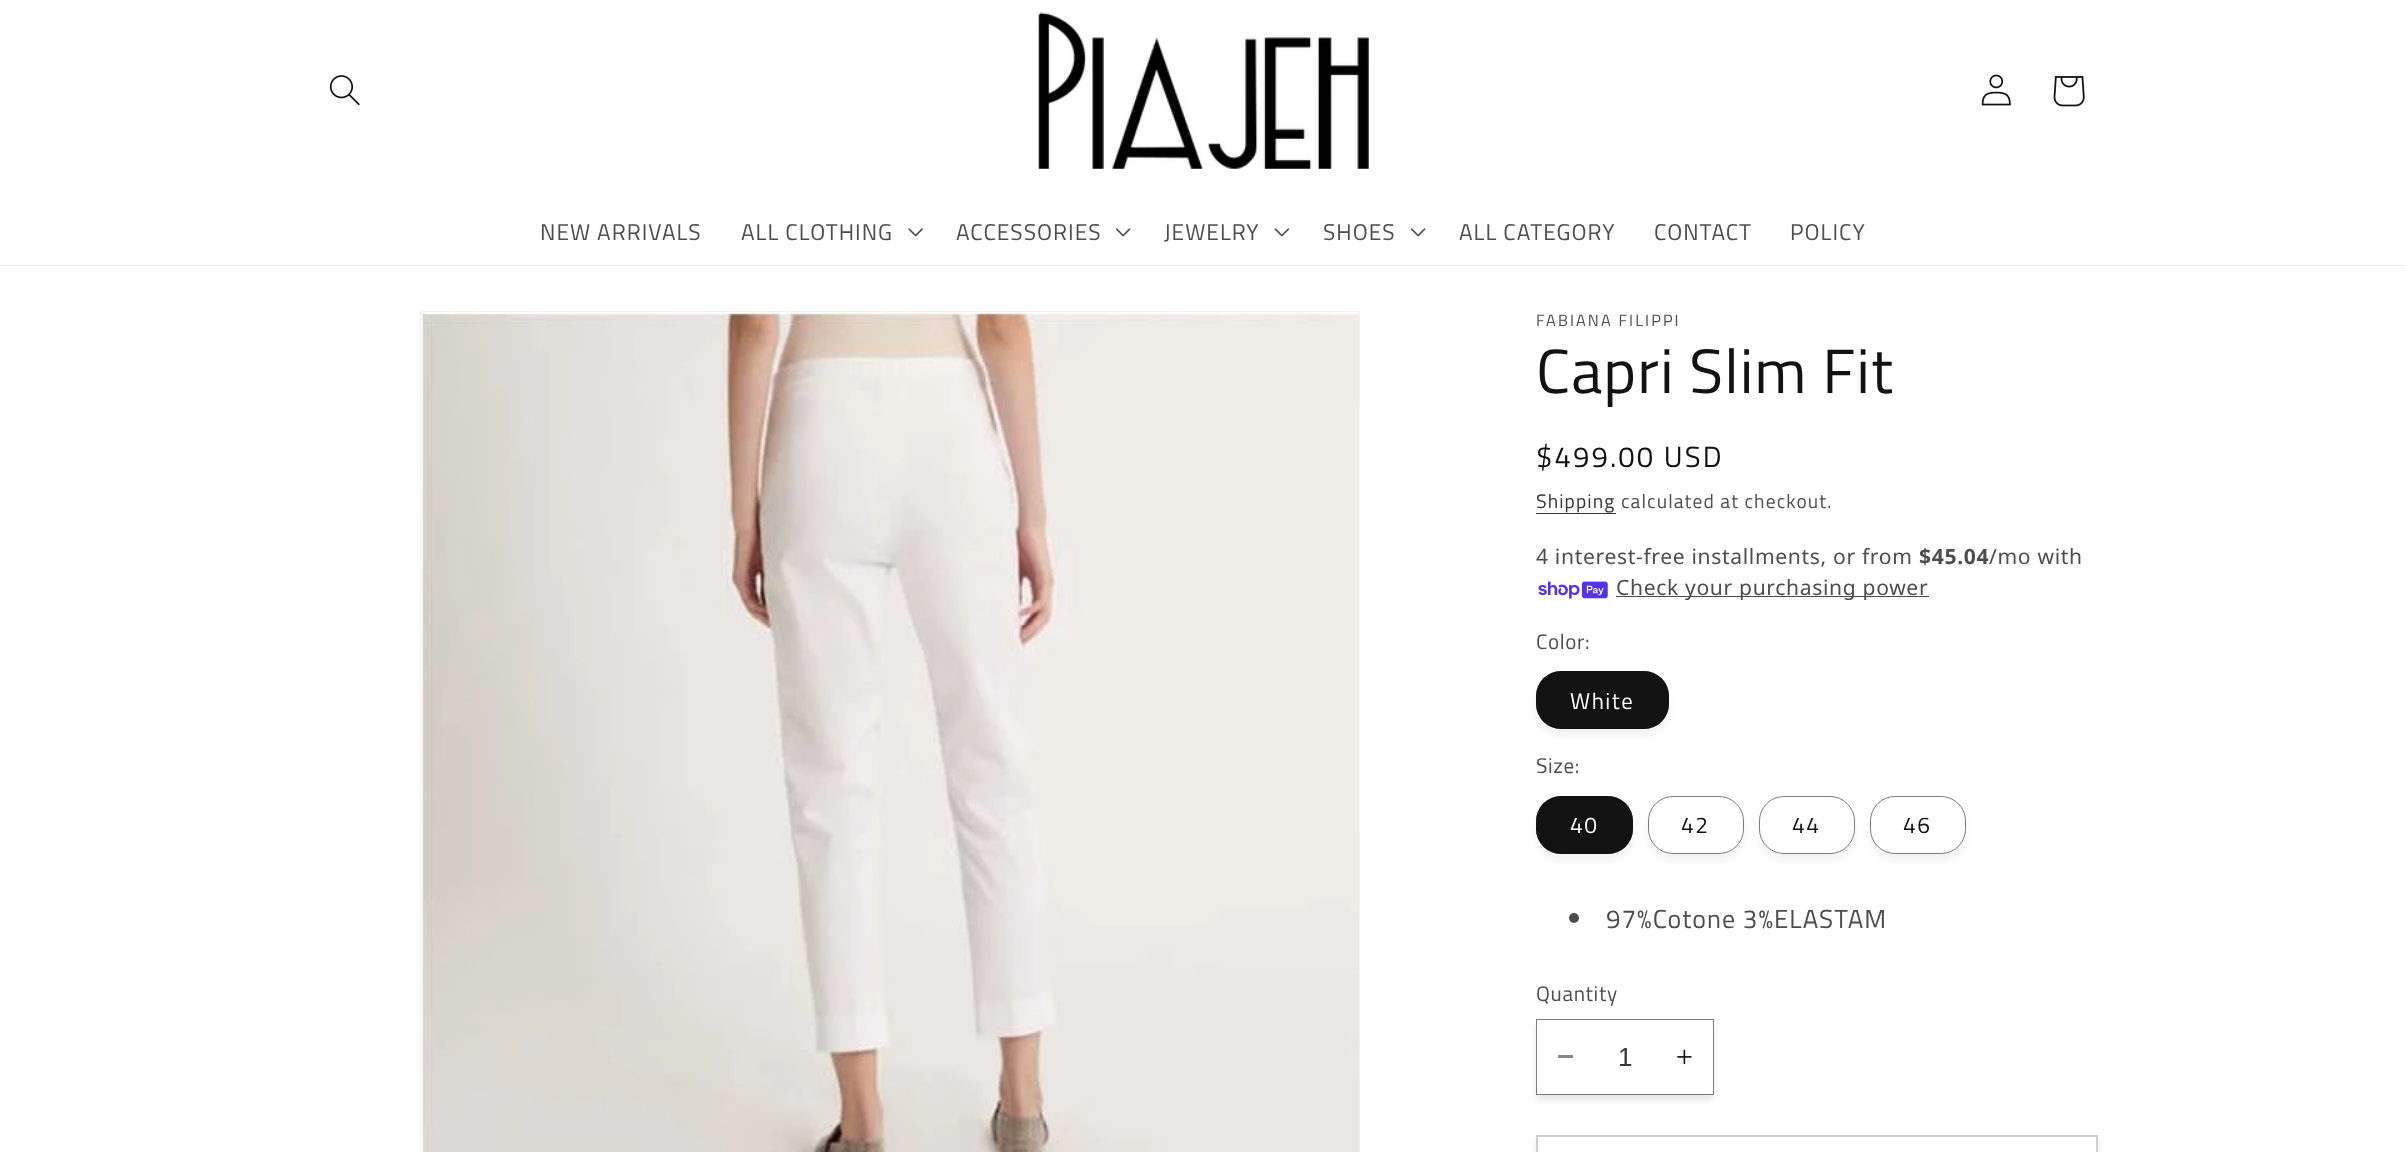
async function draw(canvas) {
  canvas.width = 2406
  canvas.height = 1152
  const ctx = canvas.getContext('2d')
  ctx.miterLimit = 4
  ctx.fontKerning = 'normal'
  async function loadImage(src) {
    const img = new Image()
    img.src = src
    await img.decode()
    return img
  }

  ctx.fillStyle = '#fff'
  ctx.fillRect(0, 0, 2406, 1152)
  ctx.fillStyle = '#ececec'
  ctx.fillRect(0, 265, 2406, 1)
  ctx.drawImage(await loadImage('image0.png'), 329, 75, 31, 31)
  ctx.drawImage(await loadImage('image1.png'), 1035, 12, 335, 157)
  ctx.drawImage(await loadImage('image2.png'), 1981, 74, 30, 32)
  ctx.drawImage(await loadImage('image3.png'), 2053, 76, 32, 31)
  ctx.letterSpacing = '1px'
  ctx.font = '22.75px Titillium Web'
  ctx.fillStyle = '#4d4d4d'
  ctx.fillText('NEW ARRIVALS', 540, 240)
  ctx.fillText('ALL CLOTHING', 741, 240)
  ctx.drawImage(await loadImage('image4.png'), 908, 228, 15, 9)
  ctx.fillText('ACCESSORIES', 956, 240)
  ctx.drawImage(await loadImage('image5.png'), 1115, 228, 16, 9)
  ctx.fillText('JEWELRY', 1164, 240)
  ctx.drawImage(await loadImage('image6.png'), 1274, 228, 16, 9)
  ctx.fillText('SHOES', 1323, 240)
  ctx.drawImage(await loadImage('image5.png'), 1410, 228, 16, 9)
  ctx.fillText('ALL CATEGORY', 1459, 240)
  ctx.fillText('CONTACT', 1654, 240)
  ctx.fillText('POLICY', 1790, 240)
  ctx.strokeStyle = '#f3f3f3'
  ctx.strokeRect(420.5, 311.5, 939, 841)
  ctx.drawImage(await loadImage('image7.png'), 421, 313, 938, 839)
  ctx.letterSpacing = '2.1px'
  ctx.font = '16.25px Titillium Web'
  ctx.fillText('FABIANA FILIPPI', 1536, 326)
  ctx.letterSpacing = '1px'
  ctx.font = '62.5px Titillium Web'
  ctx.fillStyle = '#121212'
  ctx.fillText('Capri Slim Fit', 1536, 393)
  ctx.letterSpacing = '2.1px'
  ctx.font = '29.25px Titillium Web'
  ctx.fillText('$499.00 USD', 1536, 467)
  ctx.letterSpacing = '1.1px'
  ctx.font = '19.5px Titillium Web'
  ctx.fillStyle = '#363636'
  ctx.fillText('Shipping', 1536, 508)
  ctx.fillRect(1536, 513, 80, 1)
  ctx.fillStyle = '#4d4d4d'
  ctx.fillText('calculated at checkout.', 1621, 508)
  ctx.letterSpacing = '0.65px'
  ctx.font = '21.1px Noto Sans'
  ctx.fillText('4 interest-free installments, or from', 1536, 564)
  ctx.font = 'bold 21.1px Noto Sans'
  ctx.fillText('$45.04', 1919, 564)
  ctx.font = '21.1px Noto Sans'
  ctx.fillText('/mo with', 1989, 564)
  ctx.drawImage(await loadImage('image8.png'), 1538, 581, 70, 18)
  ctx.fillRect(1616, 596, 313, 1)
  ctx.fillText('Check your purchasing power', 1616, 595)
  ctx.font = '21.1px Titillium Web'
  ctx.fillText('Color:', 1536, 649)
  ctx.fillStyle = '#1212120d'
  ctx.filter = 'blur(3px)'
  ctx.beginPath()
  ctx.roundRect(1536, 679, 133, 57, 25)
  ctx.fill()
  ctx.filter = 'none'
  ctx.fillStyle = '#121212'
  ctx.beginPath()
  ctx.roundRect(1536, 671, 133, 58, 25)
  ctx.fill()
  ctx.beginPath()
  ctx.roundRect(1536.5, 671.5, 132, 57, 24.5)
  ctx.strokeStyle = '#1212128c'
  ctx.stroke()
  ctx.letterSpacing = '1.5px'
  ctx.font = '22.75px Titillium Web'
  ctx.fillStyle = '#fff'
  ctx.fillText('White', 1570, 709)
  ctx.letterSpacing = '0.65px'
  ctx.font = '21.1px Titillium Web'
  ctx.fillStyle = '#4d4d4d'
  ctx.fillText('Size:', 1536, 773)
  ctx.fillStyle = '#1212120d'
  ctx.filter = 'blur(3px)'
  ctx.beginPath()
  ctx.roundRect(1536, 804, 97, 57, 25)
  ctx.fill()
  ctx.filter = 'none'
  ctx.fillStyle = '#121212'
  ctx.beginPath()
  ctx.roundRect(1536, 796, 97, 58, 25)
  ctx.fill()
  ctx.beginPath()
  ctx.roundRect(1536.5, 796.5, 96, 57, 24.5)
  ctx.stroke()
  ctx.letterSpacing = '1.5px'
  ctx.font = '22.75px Titillium Web'
  ctx.fillStyle = '#fff'
  ctx.fillText('40', 1570, 833)
  ctx.fillStyle = '#1212120d'
  ctx.filter = 'blur(3px)'
  ctx.beginPath()
  ctx.roundRect(1648, 804, 96, 57, 25)
  ctx.fill()
  ctx.filter = 'none'
  ctx.fillStyle = '#fff'
  ctx.beginPath()
  ctx.roundRect(1648, 796, 96, 58, 25)
  ctx.fill()
  ctx.beginPath()
  ctx.roundRect(1648.5, 796.5, 95, 57, 24.5)
  ctx.stroke()
  ctx.fillStyle = '#121212'
  ctx.fillText('42', 1681, 833)
  ctx.fillStyle = '#1212120d'
  ctx.filter = 'blur(3px)'
  ctx.beginPath()
  ctx.roundRect(1759, 804, 96, 57, 25)
  ctx.fill()
  ctx.filter = 'none'
  ctx.fillStyle = '#fff'
  ctx.beginPath()
  ctx.roundRect(1759, 796, 96, 58, 25)
  ctx.fill()
  ctx.beginPath()
  ctx.roundRect(1759.5, 796.5, 95, 57, 24.5)
  ctx.stroke()
  ctx.fillStyle = '#121212'
  ctx.fillText('44', 1792, 833)
  ctx.fillStyle = '#1212120d'
  ctx.filter = 'blur(3px)'
  ctx.beginPath()
  ctx.roundRect(1870, 804, 96, 57, 25)
  ctx.fill()
  ctx.filter = 'none'
  ctx.fillStyle = '#fff'
  ctx.beginPath()
  ctx.roundRect(1870, 796, 96, 58, 25)
  ctx.fill()
  ctx.beginPath()
  ctx.roundRect(1870.5, 796.5, 95, 57, 24.5)
  ctx.stroke()
  ctx.fillStyle = '#121212'
  ctx.fillText('46', 1903, 833)
  ctx.fillStyle = '#4d4d4d'
  ctx.beginPath()
  ctx.arc(1574, 918, 5, 0, 2 * Math.PI)
  ctx.fill()
  ctx.letterSpacing = '1px'
  ctx.font = '26px Titillium Web'
  ctx.fillText('97%Cotone 3%ELASTAM', 1606, 928)
  ctx.letterSpacing = '0.65px'
  ctx.font = '21.1px Titillium Web'
  ctx.fillText('Quantity', 1536, 1001)
  ctx.fillStyle = '#1212121a'
  ctx.filter = 'blur(3px)'
  ctx.beginPath()
  ctx.rect(1536, 1024, 178, 76)
  ctx.fill()
  ctx.filter = 'none'
  ctx.fillStyle = '#fff'
  ctx.fillRect(1537, 1020, 176, 74)
  ctx.fillStyle = '#898989'
  ctx.fillRect(1558, 1055, 15, 3)
  ctx.drawImage(await loadImage('image9.png'), 1677, 1049, 15, 16)
  ctx.strokeStyle = '#7d7d7d'
  ctx.strokeRect(1536.5, 1019.5, 177, 75)
  ctx.letterSpacing = '0px'
  ctx.font = '26px Liberation Sans'
  ctx.fillStyle = '#363636'
  ctx.fillText('1', 1618, 1066)
  ctx.fillStyle = '#1212121a'
  ctx.filter = 'blur(3px)'
  ctx.beginPath()
  ctx.rect(1536, 1140, 562, 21)
  ctx.fill()
  ctx.filter = 'none'
  ctx.fillStyle = '#fff'
  ctx.beginPath()
  ctx.rect(1537, 1136, 560, 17)
  ctx.fill()
  ctx.strokeStyle = '#d0d0d0'
  ctx.lineWidth = 2
  ctx.stroke()
}

draw(document.querySelector('canvas'))
